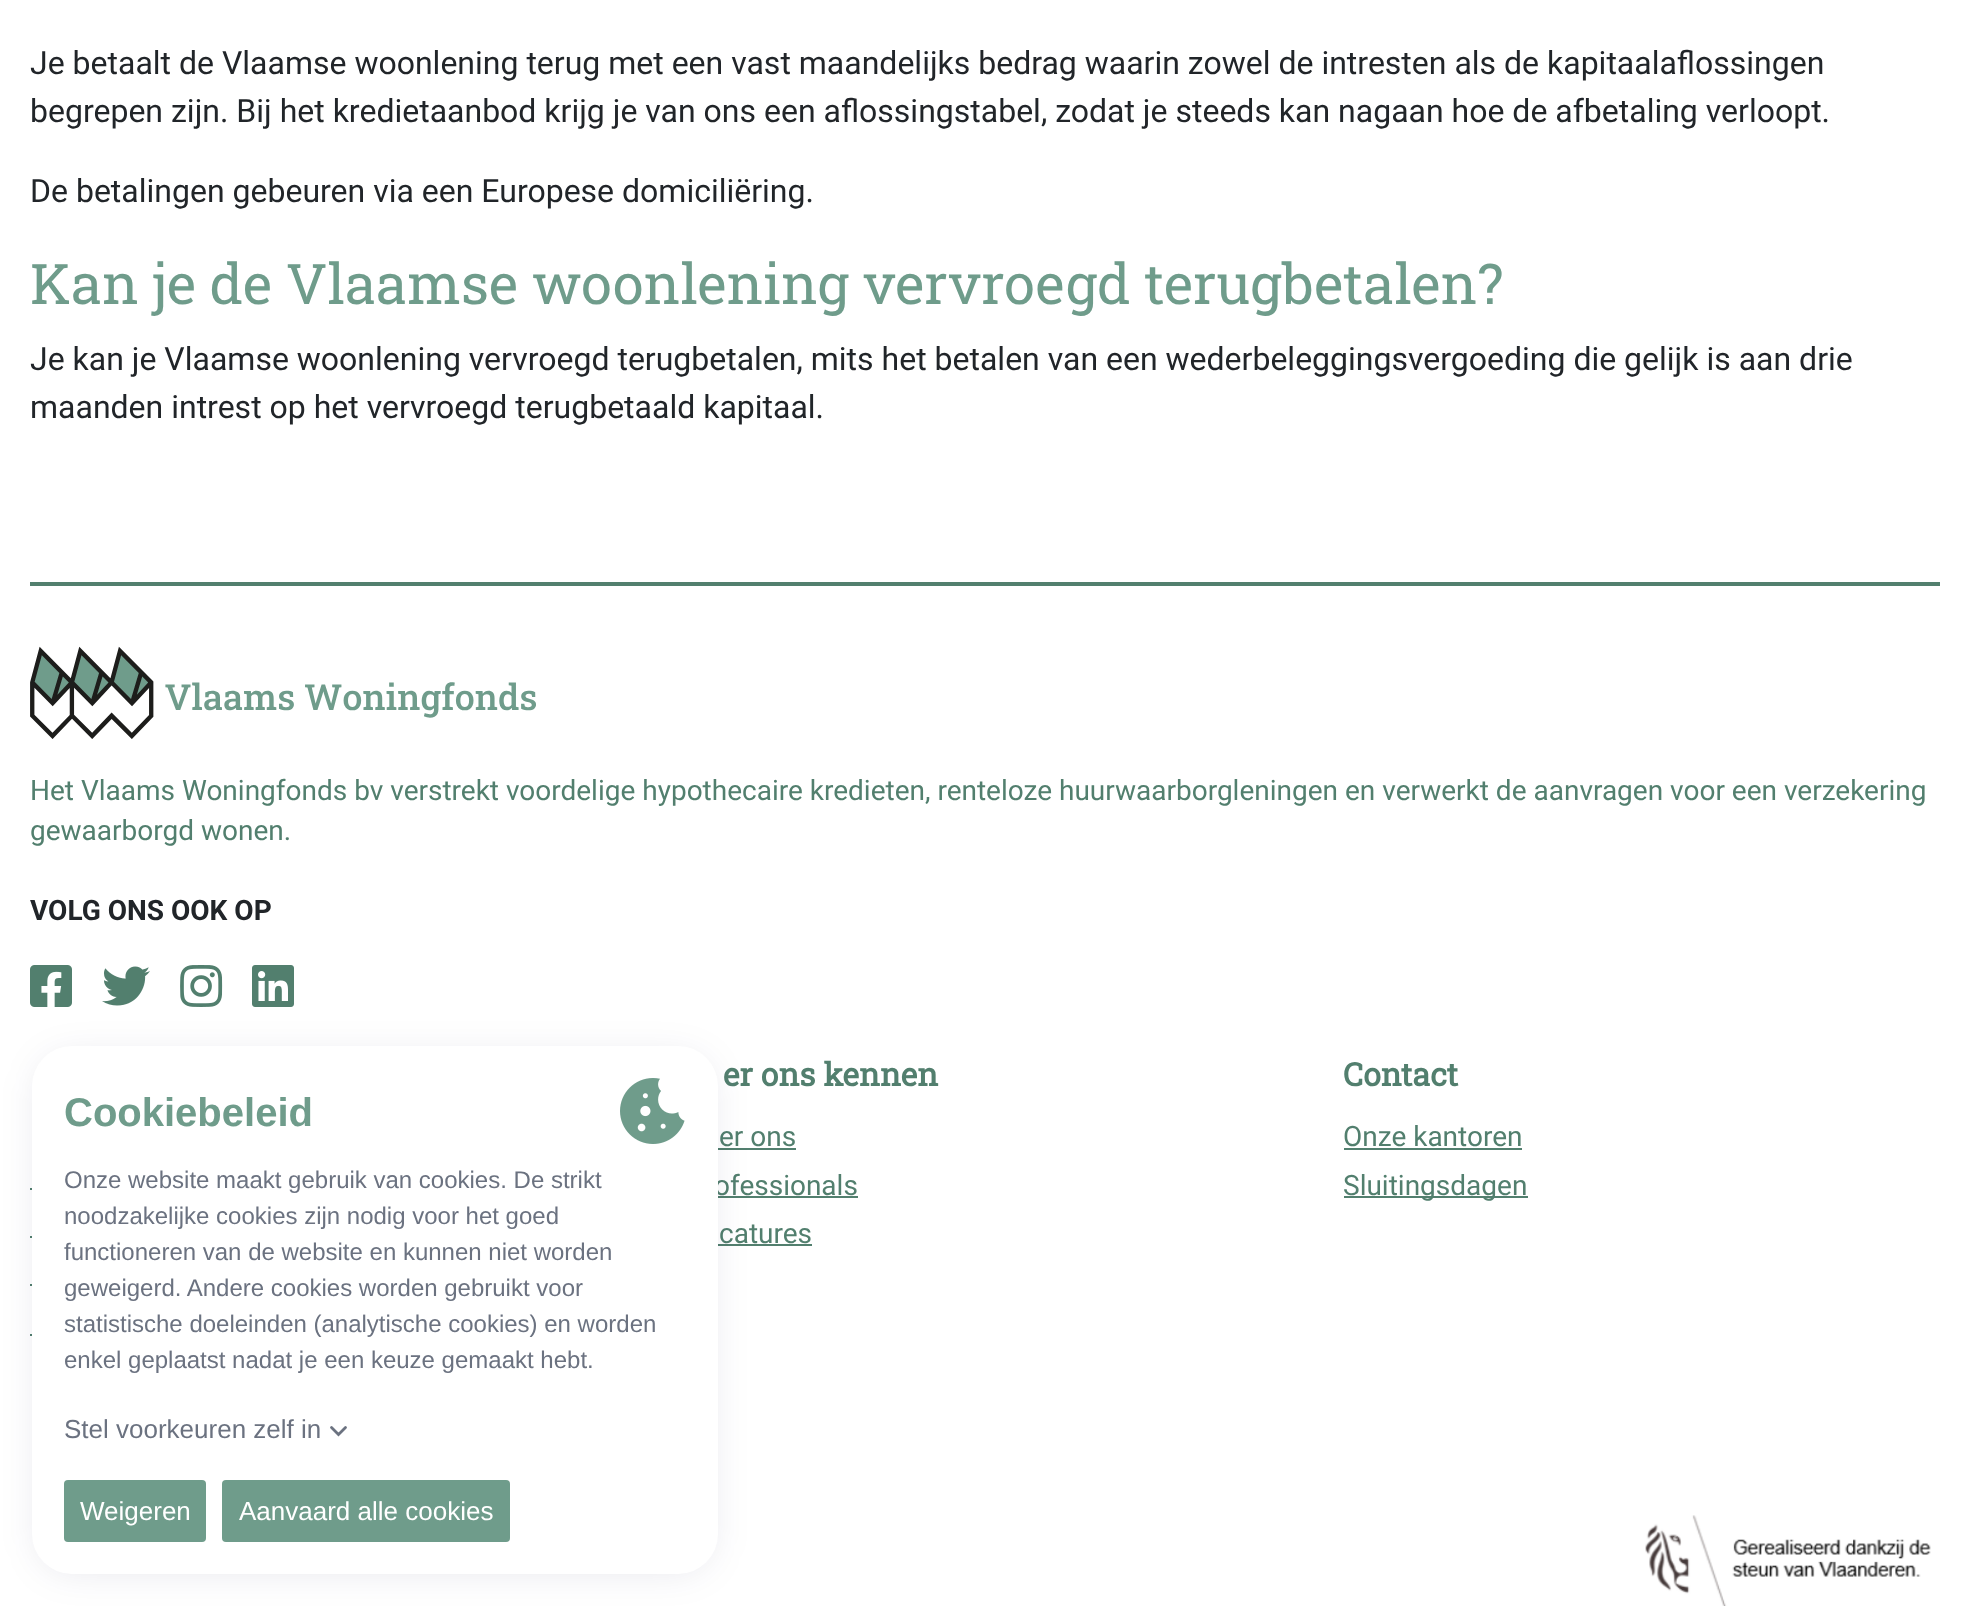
async function draw(canvas) {
  canvas.width = 1969
  canvas.height = 1606
  const ctx = canvas.getContext('2d')
  ctx.miterLimit = 4
  ctx.fontKerning = 'normal'
  async function loadImage(src) {
    const img = new Image()
    img.src = src
    await img.decode()
    return img
  }

  ctx.fillStyle = '#fff'
  ctx.fillRect(0, 0, 1969, 1606)
  ctx.font = '32px Roboto'
  ctx.fillStyle = '#212529'
  ctx.fillText('Je betaalt de Vlaamse woonlening terug met een vast maandelijks bedrag waarin zowel de intresten als de kapitaalaflossingen', 30, 74)
  ctx.fillText('begrepen zijn. Bij het kredietaanbod krijg je van ons een aflossingstabel, zodat je steeds kan nagaan hoe de afbetaling verloopt.', 30, 122)
  ctx.fillText('De betalingen gebeuren via een Europese domiciliëring.', 30, 202)
  ctx.font = '56px Roboto Slab'
  ctx.fillStyle = '#6f9c8b'
  ctx.fillText('Kan je de Vlaamse woonlening vervroegd terugbetalen?', 30, 304)
  ctx.font = '32px Roboto'
  ctx.fillStyle = '#212529'
  ctx.fillText('Je kan je Vlaamse woonlening vervroegd terugbetalen, mits het betalen van een wederbeleggingsvergoeding die gelijk is aan drie', 30, 370)
  ctx.fillText('maanden intrest op het vervroegd terugbetaald kapitaal.', 30, 418)
  ctx.fillStyle = '#527f6e'
  ctx.fillRect(30, 582, 1910, 4)
  ctx.drawImage(await loadImage('image0.png'), 30, 646, 506, 93)
  ctx.font = '28px Roboto'
  ctx.fillText('Het Vlaams Woningfonds bv verstrekt voordelige hypothecaire kredieten, renteloze huurwaarborgleningen en verwerkt de aanvragen voor een verzekering', 30, 800)
  ctx.fillText('gewaarborgd wonen.', 30, 840)
  ctx.font = 'bold 28px Roboto'
  ctx.fillStyle = '#212529'
  ctx.fillText('VOLG ONS OOK OP', 30, 920)
  ctx.drawImage(await loadImage('image1.png'), 30, 965, 42, 42)
  ctx.drawImage(await loadImage('image2.png'), 102, 966, 48, 40)
  ctx.drawImage(await loadImage('image3.png'), 180, 965, 43, 42)
  ctx.drawImage(await loadImage('image4.png'), 252, 965, 42, 42)
  ctx.font = 'bold 32px Roboto Slab'
  ctx.fillStyle = '#527f6e'
  ctx.fillText('er ons kennen', 723, 1086)
  ctx.font = '28px Roboto'
  ctx.fillText('er ons', 719, 1146)
  ctx.fillRect(718, 1148, 78, 2)
  ctx.fillText('ofessionals', 714, 1195)
  ctx.fillRect(718, 1196, 140, 2)
  ctx.fillText('catures', 719, 1243)
  ctx.fillRect(718, 1244, 94, 2)
  ctx.font = 'bold 32px Roboto Slab'
  ctx.fillText('Contact', 1343, 1086)
  ctx.font = '28px Roboto'
  ctx.fillText('Onze kantoren', 1343, 1146)
  ctx.fillRect(1344, 1148, 178, 2)
  ctx.fillRect(1344, 1196, 184, 2)
  ctx.fillText('Sluitingsdagen', 1343, 1195)
  ctx.drawImage(await loadImage('image5.png'), 1645, 1515, 286, 91)
  ctx.fillRect(30, 1188, 2, 2)
  ctx.fillRect(30, 1236, 2, 2)
  ctx.fillRect(30, 1284, 2, 2)
  ctx.fillRect(30, 1334, 2, 2)
  ctx.fillStyle = '#01013f1a'
  ctx.filter = 'blur(19px)'
  ctx.beginPath()
  ctx.roundRect(40, 1058, 670, 512, 32)
  ctx.fill()
  ctx.filter = 'none'
  ctx.fillStyle = '#fff'
  ctx.beginPath()
  ctx.roundRect(32, 1046, 686, 528, 40)
  ctx.fill()
  ctx.font = 'bold 40px Liberation Sans'
  ctx.fillStyle = '#6f9c8b'
  ctx.fillText('Cookiebeleid', 64, 1126)
  ctx.drawImage(await loadImage('image6.png'), 620, 1078, 65, 66)
  ctx.font = '24px Liberation Sans'
  ctx.fillStyle = '#6b7280'
  ctx.fillText('Onze website maakt gebruik van cookies. De strikt', 64, 1188)
  ctx.fillText('noodzakelijke cookies zijn nodig voor het goed', 64, 1224)
  ctx.fillText('functioneren van de website en kunnen niet worden', 64, 1260)
  ctx.fillText('geweigerd. Andere cookies worden gebruikt voor', 64, 1296)
  ctx.fillText('statistische doeleinden (analytische cookies) en worden', 64, 1332)
  ctx.fillText('enkel geplaatst nadat je een keuze gemaakt hebt.', 64, 1368)
  ctx.font = '26px Liberation Sans'
  ctx.fillText('Stel voorkeuren zelf in', 64, 1438)
  ctx.beginPath()
  ctx.moveTo(331.5, 1427.5)
  ctx.lineTo(338.5, 1434.5)
  ctx.lineTo(345.5, 1427.5)
  ctx.strokeStyle = '#6b7280'
  ctx.lineWidth = 2.8
  ctx.lineCap = 'round'
  ctx.stroke()
  ctx.fillStyle = '#6f9c8b'
  ctx.beginPath()
  ctx.roundRect(64, 1480, 142, 62, 4)
  ctx.fill()
  ctx.fillStyle = '#fff'
  ctx.fillText('Weigeren', 80, 1520)
  ctx.fillStyle = '#6f9c8b'
  ctx.beginPath()
  ctx.roundRect(222, 1480, 288, 62, 4)
  ctx.fill()
  ctx.fillStyle = '#fff'
  ctx.fillText('Aanvaard alle cookies', 239, 1520)
}

draw(document.querySelector('canvas'))
